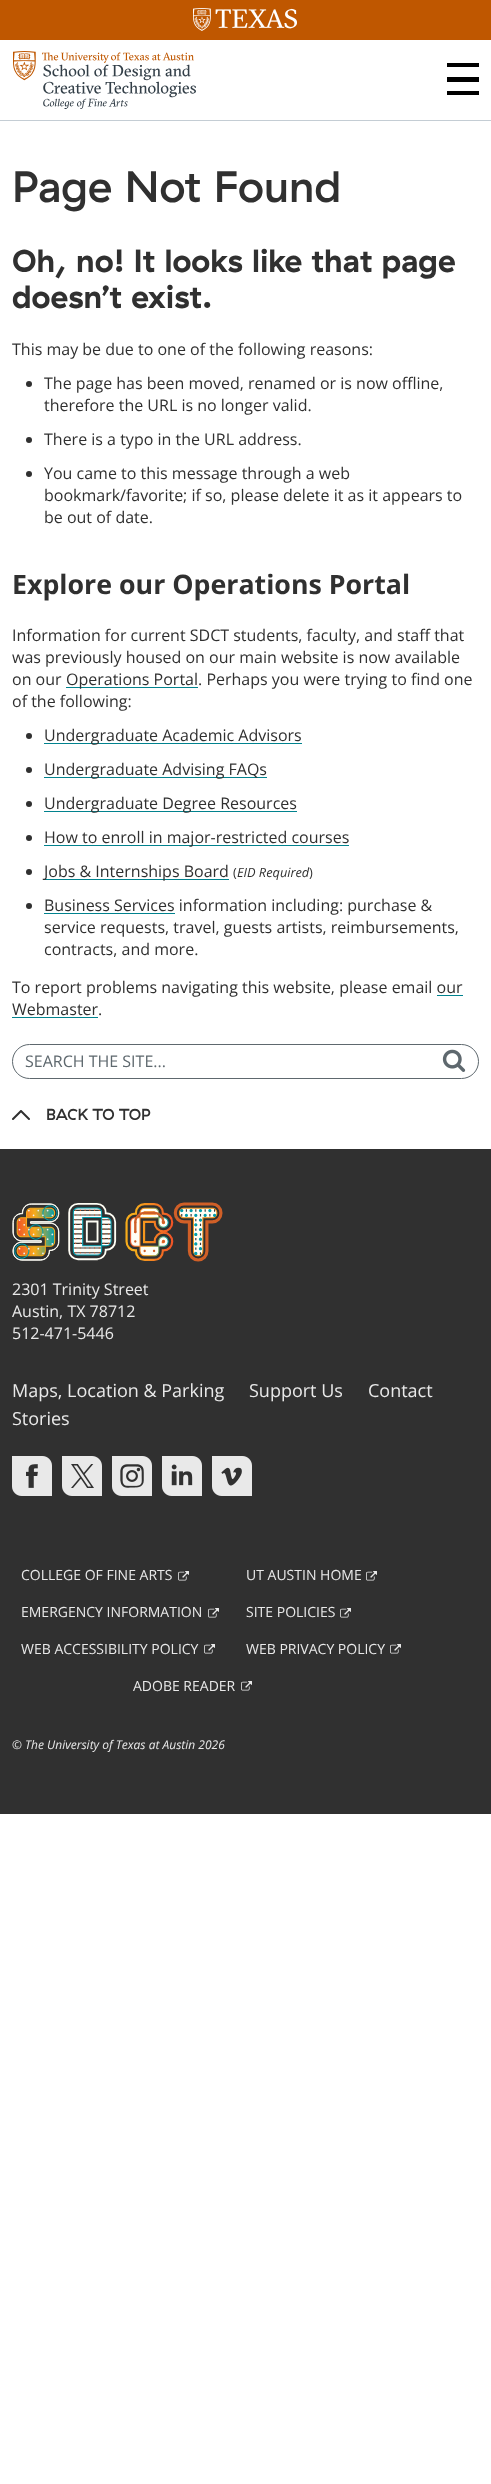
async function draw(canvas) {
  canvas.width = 491
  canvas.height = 2484
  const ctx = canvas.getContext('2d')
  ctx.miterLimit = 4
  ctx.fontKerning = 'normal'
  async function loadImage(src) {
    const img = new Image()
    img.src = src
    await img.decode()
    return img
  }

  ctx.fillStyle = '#fff'
  ctx.fillRect(0, 0, 491, 2484)
  ctx.fillStyle = '#bf5700'
  ctx.fillRect(0, 0, 491, 40)
  ctx.drawImage(await loadImage('image0.png'), 193, 8, 104, 23)
  ctx.fillStyle = '#c4cdd4'
  ctx.fillRect(0, 120, 491, 1)
  ctx.drawImage(await loadImage('image1.png'), 13, 51, 183, 58)
  ctx.fillStyle = '#000'
  ctx.fillRect(447, 63, 32, 4)
  ctx.fillRect(447, 77, 32, 5)
  ctx.fillRect(447, 91, 32, 4)
  ctx.font = '500 44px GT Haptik'
  ctx.fillStyle = '#303030'
  ctx.fillText('Page Not Found', 12, 202)
  ctx.font = 'bold 32px GT Haptik'
  ctx.fillText('Oh, no! It looks like that page', 12, 272)
  ctx.fillText('doesn’t exist.', 12, 308)
  ctx.font = '16px Open Sans'
  ctx.fillText('This may be due to one of the following reasons:', 12, 355)
  ctx.beginPath()
  ctx.arc(29, 384, 3, 0, 2 * Math.PI)
  ctx.fill()
  ctx.fillText('The page has been moved, renamed or is now offline,', 44, 389)
  ctx.fillText('therefore the URL is no longer valid.', 44, 411)
  ctx.beginPath()
  ctx.arc(29, 440, 3, 0, 2 * Math.PI)
  ctx.fill()
  ctx.fillText('There is a typo in the URL address.', 44, 445)
  ctx.beginPath()
  ctx.arc(29, 474, 3, 0, 2 * Math.PI)
  ctx.fill()
  ctx.fillText('You came to this message through a web', 44, 479)
  ctx.fillText('bookmark/favorite; if so, please delete it as it appears to', 44, 501)
  ctx.fillText('be out of date.', 44, 523)
  ctx.font = 'bold 26.75px Open Sans'
  ctx.fillText('Explore our Operations Portal', 12, 594)
  ctx.font = '16px Open Sans'
  ctx.fillText('Information for current SDCT students, faculty, and staff that', 12, 641)
  ctx.fillText('was previously housed on our main website is now available', 12, 663)
  ctx.fillText('on our', 12, 685)
  ctx.fillStyle = '#01828e'
  ctx.fillRect(66, 687, 132, 1)
  ctx.fillStyle = '#303030'
  ctx.fillText('Operations Portal. Perhaps you were trying to find one', 66, 685)
  ctx.fillText('of the following:', 12, 707)
  ctx.beginPath()
  ctx.arc(29, 736, 3, 0, 2 * Math.PI)
  ctx.fill()
  ctx.fillStyle = '#01828e'
  ctx.fillRect(44, 743, 258, 1)
  ctx.fillStyle = '#303030'
  ctx.fillText('Undergraduate Academic Advisors', 44, 741)
  ctx.beginPath()
  ctx.arc(29, 770, 3, 0, 2 * Math.PI)
  ctx.fill()
  ctx.fillStyle = '#01828e'
  ctx.fillRect(44, 777, 223, 1)
  ctx.fillStyle = '#303030'
  ctx.fillText('Undergraduate Advising FAQs', 44, 775)
  ctx.beginPath()
  ctx.arc(29, 804, 3, 0, 2 * Math.PI)
  ctx.fill()
  ctx.fillStyle = '#01828e'
  ctx.fillRect(44, 811, 253, 1)
  ctx.fillStyle = '#303030'
  ctx.fillText('Undergraduate Degree Resources', 44, 809)
  ctx.beginPath()
  ctx.arc(29, 838, 3, 0, 2 * Math.PI)
  ctx.fill()
  ctx.fillStyle = '#01828e'
  ctx.fillRect(44, 845, 305, 1)
  ctx.fillStyle = '#303030'
  ctx.fillText('How to enroll in major-restricted courses', 44, 843)
  ctx.beginPath()
  ctx.arc(29, 872, 3, 0, 2 * Math.PI)
  ctx.fill()
  ctx.fillStyle = '#01828e'
  ctx.fillRect(44, 879, 185, 1)
  ctx.fillStyle = '#303030'
  ctx.fillText('Jobs & Internships Board', 44, 877)
  ctx.font = '12.75px Open Sans'
  ctx.fillText('(', 233, 877)
  ctx.font = 'italic 12.75px Open Sans'
  ctx.fillText('EID Required', 237, 877)
  ctx.font = '12.75px Open Sans'
  ctx.fillText(')', 309, 877)
  ctx.beginPath()
  ctx.arc(29, 906, 3, 0, 2 * Math.PI)
  ctx.fill()
  ctx.fillStyle = '#01828e'
  ctx.fillRect(44, 913, 131, 1)
  ctx.font = '16px Open Sans'
  ctx.fillStyle = '#303030'
  ctx.fillText('Business Services information including: purchase &', 44, 911)
  ctx.fillText('service requests, travel, guests artists, reimbursements,', 44, 933)
  ctx.fillText('contracts, and more.', 44, 955)
  ctx.fillText('To report problems navigating this website, please email our', 12, 993)
  ctx.fillText('Webmaster.', 12, 1015)
  ctx.fillStyle = '#01828e'
  ctx.fillRect(437, 995, 26, 1)
  ctx.fillRect(12, 1017, 86, 1)
  ctx.beginPath()
  ctx.roundRect(12.5, 1044.5, 466, 34, 17)
  ctx.strokeStyle = '#5e686e'
  ctx.stroke()
  ctx.fillStyle = '#5e686e'
  ctx.fillText('SEARCH THE SITE...', 25, 1067)
  ctx.drawImage(await loadImage('image2.png'), 442, 1049, 24, 23)
  ctx.drawImage(await loadImage('image3.png'), 12, 1110, 18, 10)
  ctx.font = '500 16px GT Haptik'
  ctx.fillStyle = '#303030'
  ctx.fillText('BACK TO TOP', 46, 1120)
  ctx.fillRect(0, 1149, 491, 665)
  ctx.drawImage(await loadImage('image4.png'), 12, 1202, 211, 60)
  ctx.font = '16px Open Sans'
  ctx.fillStyle = '#e9e9e9'
  ctx.fillText('2301 Trinity Street', 12, 1295)
  ctx.fillText('Austin, TX 78712', 12, 1317)
  ctx.fillText('512-471-5446', 12, 1339)
  ctx.font = '18px Open Sans'
  ctx.fillText('Maps, Location & Parking', 12, 1397)
  ctx.fillText('Support Us', 249, 1397)
  ctx.fillText('Contact', 368, 1397)
  ctx.fillText('Stories', 12, 1425)
  ctx.drawImage(await loadImage('image5.png'), 12, 1456, 40, 40)
  ctx.drawImage(await loadImage('image6.png'), 62, 1456, 40, 40)
  ctx.drawImage(await loadImage('image7.png'), 112, 1456, 40, 40)
  ctx.drawImage(await loadImage('image8.png'), 162, 1456, 40, 40)
  ctx.drawImage(await loadImage('image9.png'), 212, 1456, 40, 40)
  ctx.font = '14px Open Sans'
  ctx.fillText('COLLEGE OF FINE ARTS', 21, 1580)
  ctx.drawImage(await loadImage('image10.png'), 178, 1571, 11, 10)
  ctx.fillText('UT AUSTIN HOME', 246, 1580)
  ctx.drawImage(await loadImage('image10.png'), 366, 1571, 11, 10)
  ctx.fillText('EMERGENCY INFORMATION', 21, 1617)
  ctx.drawImage(await loadImage('image10.png'), 208, 1608, 11, 10)
  ctx.fillText('SITE POLICIES', 246, 1617)
  ctx.drawImage(await loadImage('image10.png'), 340, 1608, 11, 10)
  ctx.fillText('WEB ACCESSIBILITY POLICY', 21, 1654)
  ctx.drawImage(await loadImage('image11.png'), 204, 1644, 11, 10)
  ctx.fillText('WEB PRIVACY POLICY', 246, 1654)
  ctx.drawImage(await loadImage('image11.png'), 390, 1644, 11, 10)
  ctx.fillText('ADOBE READER', 133, 1691)
  ctx.drawImage(await loadImage('image11.png'), 241, 1681, 11, 10)
  ctx.font = 'italic 12px Open Sans'
  ctx.fillText('© The University of Texas at Austin 2026', 12, 1749)
}

draw(document.querySelector('canvas'))
